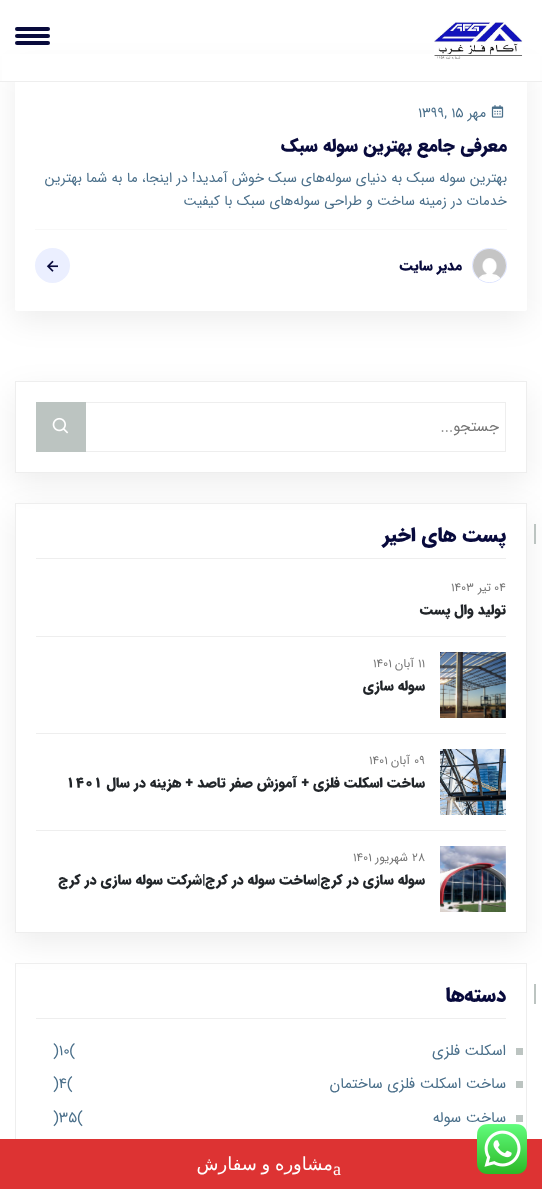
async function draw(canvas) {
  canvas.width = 542
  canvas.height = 1189
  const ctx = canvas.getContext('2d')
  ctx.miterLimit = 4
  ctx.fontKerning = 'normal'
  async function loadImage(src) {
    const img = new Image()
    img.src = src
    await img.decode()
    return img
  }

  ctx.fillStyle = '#fff'
  ctx.fillRect(0, 0, 542, 1189)
  ctx.save()
  ctx.beginPath()
  ctx.moveTo(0, 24)
  ctx.lineTo(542, 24)
  ctx.lineTo(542, 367)
  ctx.lineTo(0, 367)
  ctx.closePath()
  ctx.moveTo(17, 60)
  ctx.lineTo(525, 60)
  ctx.bezierCurveTo(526, 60, 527, 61, 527, 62)
  ctx.lineTo(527, 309)
  ctx.bezierCurveTo(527, 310, 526, 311, 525, 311)
  ctx.lineTo(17, 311)
  ctx.bezierCurveTo(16, 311, 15, 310, 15, 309)
  ctx.lineTo(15, 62)
  ctx.bezierCurveTo(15, 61, 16, 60, 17, 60)
  ctx.closePath()
  ctx.clip('evenodd')
  ctx.fillStyle = '#00000012'
  ctx.filter = 'blur(15px)'
  ctx.beginPath()
  ctx.roundRect(15, 70, 512, 251, 2)
  ctx.fill()
  ctx.filter = 'none'
  ctx.restore()
  ctx.fillRect(2, 54, 538, 27)
  ctx.fillStyle = '#eee'
  ctx.fillRect(0, 81, 542, 1)
  ctx.drawImage(await loadImage('image0.png'), 434, 22, 89, 38)
  ctx.fillStyle = '#080a3c'
  ctx.beginPath()
  ctx.roundRect(15, 27, 35, 4, 2)
  ctx.fill()
  ctx.beginPath()
  ctx.roundRect(15, 34, 35, 4, 2)
  ctx.fill()
  ctx.beginPath()
  ctx.roundRect(15, 41, 35, 4, 2)
  ctx.fill()
  ctx.drawImage(await loadImage('image1.png'), 491, 105, 13, 13)
  ctx.direction = 'rtl'
  ctx.font = '14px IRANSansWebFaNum'
  ctx.fillStyle = '#4a6f8a'
  ctx.fillText('مهر', 486, 117)
  ctx.direction = 'ltr'
  ctx.fillText('۱۳۹۹, ۱۵', 418, 117)
  ctx.direction = 'rtl'
  ctx.font = '900 18px IRANSansWebFaNum'
  ctx.fillStyle = '#080a3c'
  ctx.fillText('معرفی جامع بهترین سوله سبک', 507, 151)
  ctx.font = '14px IRANSansWebFaNum'
  ctx.fillStyle = '#4a6f8a'
  ctx.fillText('بهترین سوله سبک به دنیای سوله‌های سبک خوش آمدید! در اینجا، ما به شما بهترین', 507, 182)
  ctx.fillText('خدمات در زمینه ساخت و طراحی سوله‌های سبک با کیفیت', 507, 205)
  ctx.fillStyle = '#f8f8f8'
  ctx.fillRect(35, 229, 472, 1)
  ctx.beginPath()
  ctx.arc(489.5, 265.5, 17, 0, 2 * Math.PI)
  ctx.strokeStyle = '#dde4ff'
  ctx.stroke()
  ctx.drawImage(await loadImage('image2.png'), 473, 249, 33, 33)
  ctx.font = '900 14px IRANSansWebFaNum'
  ctx.fillStyle = '#080a3c'
  ctx.fillText('مدیر سایت', 462, 270)
  ctx.fillStyle = '#ebefff'
  ctx.beginPath()
  ctx.arc(52.5, 265.5, 17.5, 0, 2 * Math.PI)
  ctx.fill()
  ctx.drawImage(await loadImage('image3.png'), 46, 260, 12, 12)
  ctx.save()
  ctx.beginPath()
  ctx.moveTo(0, 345)
  ctx.lineTo(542, 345)
  ctx.lineTo(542, 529)
  ctx.lineTo(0, 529)
  ctx.closePath()
  ctx.moveTo(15, 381)
  ctx.lineTo(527, 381)
  ctx.lineTo(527, 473)
  ctx.lineTo(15, 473)
  ctx.closePath()
  ctx.clip('evenodd')
  ctx.fillStyle = '#00000012'
  ctx.filter = 'blur(15px)'
  ctx.beginPath()
  ctx.rect(15, 391, 512, 92)
  ctx.fill()
  ctx.filter = 'none'
  ctx.restore()
  ctx.strokeStyle = '#eee'
  ctx.strokeRect(15.5, 381.5, 511, 91)
  ctx.strokeRect(36.5, 402.5, 469, 49)
  ctx.font = '15px IRANSansWebFaNum'
  ctx.fillStyle = '#757575'
  ctx.fillText('جستجو...', 499, 431)
  ctx.fillStyle = '#bcc4c1'
  ctx.fillRect(36, 402, 50, 50)
  ctx.drawImage(await loadImage('image4.png'), 52, 417, 17, 17)
  ctx.save()
  ctx.beginPath()
  ctx.moveTo(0, 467)
  ctx.lineTo(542, 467)
  ctx.lineTo(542, 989)
  ctx.lineTo(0, 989)
  ctx.closePath()
  ctx.moveTo(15, 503)
  ctx.lineTo(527, 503)
  ctx.lineTo(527, 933)
  ctx.lineTo(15, 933)
  ctx.closePath()
  ctx.clip('evenodd')
  ctx.fillStyle = '#00000012'
  ctx.filter = 'blur(15px)'
  ctx.beginPath()
  ctx.rect(15, 513, 512, 430)
  ctx.fill()
  ctx.filter = 'none'
  ctx.restore()
  ctx.strokeRect(15.5, 503.5, 511, 429)
  ctx.fillStyle = '#eee'
  ctx.fillRect(36, 558, 470, 1)
  ctx.fillStyle = '#bcc4c1'
  ctx.fillRect(534, 524, 2, 20)
  ctx.font = '900 20px IRANSansWebFaNum'
  ctx.fillStyle = '#080a3c'
  ctx.fillText('پست های اخیر', 506, 541)
  ctx.fillStyle = '#eee'
  ctx.fillRect(36, 636, 470, 1)
  ctx.direction = 'ltr'
  ctx.font = '12px IRANSansWebFaNum'
  ctx.fillStyle = '#757575'
  ctx.fillText('04', 494, 591)
  ctx.direction = 'rtl'
  ctx.fillText('تیر', 491, 591)
  ctx.direction = 'ltr'
  ctx.fillText('1403', 451, 591)
  ctx.direction = 'rtl'
  ctx.font = '900 14px IRANSansWebFaNum'
  ctx.fillStyle = '#212529'
  ctx.fillText('تولید وال پست', 506, 614)
  ctx.fillStyle = '#eee'
  ctx.fillRect(36, 733, 470, 1)
  ctx.drawImage(await loadImage('image5.png'), 440, 652, 66, 66)
  ctx.direction = 'ltr'
  ctx.font = '12px IRANSansWebFaNum'
  ctx.fillStyle = '#757575'
  ctx.fillText('11', 418, 667)
  ctx.direction = 'rtl'
  ctx.fillText('آبان', 414, 667)
  ctx.direction = 'ltr'
  ctx.fillText('1401', 373, 667)
  ctx.direction = 'rtl'
  ctx.font = '900 14px IRANSansWebFaNum'
  ctx.fillStyle = '#212529'
  ctx.fillText('سوله سازی', 425, 690)
  ctx.fillStyle = '#eee'
  ctx.fillRect(36, 830, 470, 1)
  ctx.drawImage(await loadImage('image6.png'), 440, 749, 66, 66)
  ctx.direction = 'ltr'
  ctx.font = '12px IRANSansWebFaNum'
  ctx.fillStyle = '#757575'
  ctx.fillText('09', 414, 764)
  ctx.direction = 'rtl'
  ctx.fillText('آبان', 410, 764)
  ctx.direction = 'ltr'
  ctx.fillText('1401', 369, 764)
  ctx.direction = 'rtl'
  ctx.font = '900 14px IRANSansWebFaNum'
  ctx.fillStyle = '#212529'
  ctx.fillText('ساخت اسکلت فلزی + آموزش صفر تاصد + هزینه در سال', 425, 787)
  ctx.direction = 'ltr'
  ctx.fillText('۱۴۰۱', 66, 787)
  ctx.drawImage(await loadImage('image7.png'), 440, 846, 66, 66)
  ctx.font = '12px IRANSansWebFaNum'
  ctx.fillStyle = '#757575'
  ctx.fillText('28', 412, 861)
  ctx.direction = 'rtl'
  ctx.fillText('شهریور', 408, 861)
  ctx.direction = 'ltr'
  ctx.fillText('1401', 353, 861)
  ctx.direction = 'rtl'
  ctx.font = '900 14px IRANSansWebFaNum'
  ctx.fillStyle = '#212529'
  ctx.fillText('سوله سازی در کرج|ساخت سوله در کرج|شرکت سوله سازی در کرج', 425, 884)
  ctx.strokeRect(15.5, 963.5, 511, 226)
  ctx.fillStyle = '#eee'
  ctx.fillRect(36, 1018, 470, 1)
  ctx.fillStyle = '#bcc4c1'
  ctx.fillRect(534, 984, 2, 20)
  ctx.font = '900 20px IRANSansWebFaNum'
  ctx.fillStyle = '#080a3c'
  ctx.fillText('دسته‌ها', 506, 1001)
  ctx.fillStyle = '#bcc4c1'
  ctx.fillRect(516, 1048, 7, 7)
  ctx.font = '15px IRANSansWebFaNum'
  ctx.fillStyle = '#4a6f8a'
  ctx.fillText('اسکلت فلزی', 506, 1055)
  ctx.direction = 'ltr'
  ctx.fillText(')۱۰(', 53, 1055)
  ctx.fillStyle = '#bcc4c1'
  ctx.fillRect(516, 1081, 7, 7)
  ctx.direction = 'rtl'
  ctx.fillStyle = '#4a6f8a'
  ctx.fillText('ساخت اسکلت فلزی ساختمان', 506, 1088)
  ctx.direction = 'ltr'
  ctx.fillText(')۴(', 53, 1088)
  ctx.fillStyle = '#bcc4c1'
  ctx.fillRect(516, 1115, 7, 7)
  ctx.direction = 'rtl'
  ctx.fillStyle = '#4a6f8a'
  ctx.fillText('ساخت سوله', 506, 1122)
  ctx.direction = 'ltr'
  ctx.fillText(')۳۵(', 53, 1122)
  ctx.fillStyle = '#d33'
  ctx.fillRect(0, 1139, 542, 50)
  ctx.drawImage(await loadImage('image8.png'), 477, 1124, 50, 50)
  ctx.font = '18px Liberation Serif'
  ctx.fillStyle = '#fff'
  ctx.fillText('a', 333, 1175)
  ctx.wordSpacing = '-1px'
  ctx.direction = 'rtl'
  ctx.font = '18px DejaVu Sans'
  ctx.fillText('مشاوره و سفارش', 333, 1170)
}

draw(document.querySelector('canvas'))
